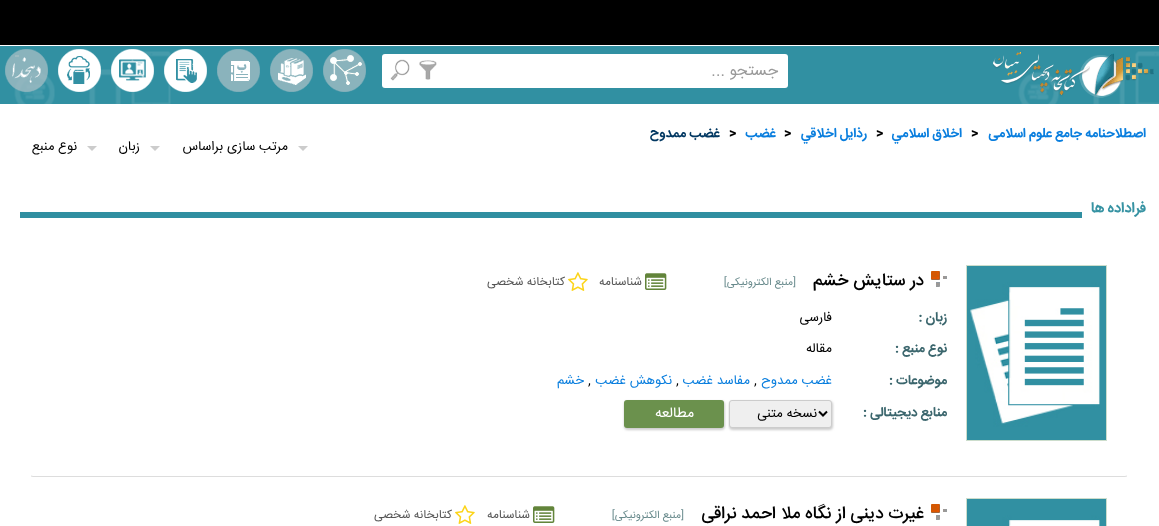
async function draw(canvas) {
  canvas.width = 1159
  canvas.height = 526
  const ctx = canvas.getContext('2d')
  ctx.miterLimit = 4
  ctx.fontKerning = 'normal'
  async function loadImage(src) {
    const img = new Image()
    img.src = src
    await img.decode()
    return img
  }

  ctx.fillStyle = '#fff'
  ctx.fillRect(0, 0, 1159, 526)
  ctx.fillStyle = '#000'
  ctx.fillRect(0, 0, 1159, 45)
  ctx.fillStyle = '#3190a2'
  ctx.fillRect(0, 46, 1159, 58)
  ctx.drawImage(await loadImage('image7.png'), 14, 51, 1145, 53)
  ctx.drawImage(await loadImage('image0.png'), 323, 49, 43, 43)
  ctx.drawImage(await loadImage('image1.png'), 270, 49, 43, 43)
  ctx.drawImage(await loadImage('image2.png'), 217, 49, 43, 43)
  ctx.drawImage(await loadImage('image3.png'), 164, 49, 43, 43)
  ctx.drawImage(await loadImage('image4.png'), 111, 49, 43, 43)
  ctx.drawImage(await loadImage('image5.png'), 58, 49, 43, 43)
  ctx.drawImage(await loadImage('image6.png'), 5, 49, 43, 43)
  ctx.drawImage(await loadImage('image8.png'), 993, 52, 161, 46)
  ctx.fillStyle = '#fff'
  ctx.beginPath()
  ctx.roundRect(382, 54, 406, 34, 3)
  ctx.fill()
  ctx.direction = 'rtl'
  ctx.font = '16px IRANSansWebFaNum'
  ctx.fillStyle = '#9a9a9a'
  ctx.fillText('جستجو ...', 778, 75)
  ctx.drawImage(await loadImage('image9.png'), 419, 60, 18, 20)
  ctx.drawImage(await loadImage('image10.png'), 390, 59, 20, 22)
  ctx.font = 'bold 13.25px IRANSansWebFaNum'
  ctx.fillStyle = '#097ede'
  ctx.fillText('اصطلاحنامه جامع علوم اسلامی', 1146, 137)
  ctx.direction = 'ltr'
  ctx.fillStyle = '#000'
  ctx.fillText('>', 971, 137)
  ctx.direction = 'rtl'
  ctx.fillStyle = '#097ede'
  ctx.fillText('اخلاق اسلامي', 962, 137)
  ctx.direction = 'ltr'
  ctx.fillStyle = '#000'
  ctx.fillText('>', 876, 137)
  ctx.direction = 'rtl'
  ctx.fillStyle = '#097ede'
  ctx.fillText('رذايل اخلاقي', 867, 137)
  ctx.direction = 'ltr'
  ctx.fillStyle = '#000'
  ctx.fillText('>', 784, 137)
  ctx.direction = 'rtl'
  ctx.fillStyle = '#097ede'
  ctx.fillText('غضب', 776, 137)
  ctx.direction = 'ltr'
  ctx.fillStyle = '#000'
  ctx.fillText('>', 729, 137)
  ctx.direction = 'rtl'
  ctx.fillStyle = '#023862'
  ctx.fillText('غضب ممدوح', 720, 137)
  ctx.fillStyle = '#ccc'
  ctx.beginPath()
  ctx.moveTo(298, 146)
  ctx.lineTo(308, 146)
  ctx.lineTo(303, 151)
  ctx.closePath()
  ctx.fill()
  ctx.font = '13.25px IRANSansWebFaNum'
  ctx.fillStyle = '#000'
  ctx.fillText('مرتب سازی براساس', 288, 150)
  ctx.fillStyle = '#ccc'
  ctx.beginPath()
  ctx.moveTo(150, 146)
  ctx.lineTo(160, 146)
  ctx.lineTo(155, 151)
  ctx.closePath()
  ctx.fill()
  ctx.fillStyle = '#000'
  ctx.fillText('زبان', 140, 150)
  ctx.fillStyle = '#ccc'
  ctx.beginPath()
  ctx.moveTo(87, 146)
  ctx.lineTo(97, 146)
  ctx.lineTo(92, 151)
  ctx.closePath()
  ctx.fill()
  ctx.fillStyle = '#000'
  ctx.fillText('نوع منبع', 77, 150)
  ctx.font = 'bold 14.5px IRANSansWebFaNum'
  ctx.fillStyle = '#3793a3'
  ctx.fillText('فراداده ها', 1146, 212)
  ctx.fillStyle = '#308fa1'
  ctx.fillRect(20, 212, 1062, 6)
  ctx.beginPath()
  ctx.moveTo(1127, 476)
  ctx.lineTo(1125, 476.5)
  ctx.lineTo(33, 476.5)
  ctx.lineTo(31, 476)
  ctx.strokeStyle = '#ddd'
  ctx.stroke()
  ctx.strokeStyle = '#cdc'
  ctx.strokeRect(966.5, 265.5, 140, 175)
  ctx.drawImage(await loadImage('image11.png'), 967, 266, 139, 174)
  ctx.drawImage(await loadImage('image12.png'), 931, 271, 16, 16)
  ctx.font = '500 17.3px IRANSansWebFaNum'
  ctx.fillStyle = '#000'
  ctx.fillText('در ستایش خشم', 924, 285)
  ctx.font = '10.75px IRANSansWebFaNum'
  ctx.fillStyle = '#688a8c'
  ctx.fillText('[منبع الکترونیکی]', 796, 285)
  ctx.drawImage(await loadImage('image13.png'), 645, 273, 22, 17)
  ctx.font = '12px IRANSansWebFaNum'
  ctx.fillStyle = '#565656'
  ctx.fillText('شناسنامه', 642, 285)
  ctx.drawImage(await loadImage('image14.png'), 568, 272, 20, 19)
  ctx.fillText('کتابخانه شخصی', 565, 285)
  ctx.font = 'bold 13.25px IRANSansWebFaNum'
  ctx.fillStyle = '#3b666d'
  ctx.fillText('زبان :', 947, 321)
  ctx.font = '13.25px IRANSansWebFaNum'
  ctx.fillStyle = '#000'
  ctx.fillText('فارسی', 832, 321)
  ctx.font = 'bold 13.25px IRANSansWebFaNum'
  ctx.fillStyle = '#3b666d'
  ctx.fillText('نوع منبع :', 947, 352)
  ctx.font = '13.25px IRANSansWebFaNum'
  ctx.fillStyle = '#000'
  ctx.fillText('مقاله', 832, 352)
  ctx.font = 'bold 13.25px IRANSansWebFaNum'
  ctx.fillStyle = '#3b666d'
  ctx.fillText('موضوعات :', 947, 384)
  ctx.font = '13.25px IRANSansWebFaNum'
  ctx.fillStyle = '#097ede'
  ctx.fillText('غضب ممدوح', 832, 384)
  ctx.direction = 'ltr'
  ctx.fillStyle = '#000'
  ctx.fillText(',', 754, 384)
  ctx.direction = 'rtl'
  ctx.fillStyle = '#097ede'
  ctx.fillText('مفاسد غضب', 750, 384)
  ctx.direction = 'ltr'
  ctx.fillStyle = '#000'
  ctx.fillText(',', 676, 384)
  ctx.direction = 'rtl'
  ctx.fillStyle = '#097ede'
  ctx.fillText('نكوهش غضب', 672, 384)
  ctx.direction = 'ltr'
  ctx.fillStyle = '#000'
  ctx.fillText(',', 588, 384)
  ctx.direction = 'rtl'
  ctx.fillStyle = '#097ede'
  ctx.fillText('خشم‌', 584, 384)
  ctx.font = 'bold 13.25px IRANSansWebFaNum'
  ctx.fillStyle = '#3b666d'
  ctx.fillText('منابع دیجیتالی :', 947, 416)
  ctx.fillStyle = '#ccc'
  ctx.filter = 'blur(1px)'
  ctx.beginPath()
  ctx.roundRect(729, 401, 104, 29, 4)
  ctx.fill()
  ctx.filter = 'none'
  ctx.fillStyle = '#efefef'
  ctx.beginPath()
  ctx.roundRect(729.5, 400.5, 102, 27, 2.5)
  ctx.fill()
  ctx.strokeStyle = '#ccc'
  ctx.stroke()
  ctx.beginPath()
  ctx.moveTo(819, 411.5)
  ctx.lineTo(823, 415.5)
  ctx.lineTo(827, 411.5)
  ctx.strokeStyle = '#000'
  ctx.lineWidth = 2
  ctx.stroke()
  ctx.font = '13.25px IRANSansWebFaNum'
  ctx.fillStyle = '#000'
  ctx.fillText('نسخه متنی', 817, 417)
  ctx.fillStyle = '#ccc'
  ctx.filter = 'blur(1px)'
  ctx.beginPath()
  ctx.roundRect(624, 401, 101, 29, 4)
  ctx.fill()
  ctx.filter = 'none'
  ctx.fillStyle = '#6b914d'
  ctx.beginPath()
  ctx.roundRect(624, 400, 100, 28, 3)
  ctx.fill()
  ctx.font = '14.5px IRANSansWebFaNum'
  ctx.fillStyle = '#fff'
  ctx.fillText('مطالعه', 694, 417)
  ctx.strokeStyle = '#cdc'
  ctx.lineWidth = 1
  ctx.strokeRect(966.5, 498.5, 140, 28)
  ctx.drawImage(await loadImage('image15.png'), 967, 499, 139, 27)
  ctx.drawImage(await loadImage('image12.png'), 931, 504, 16, 16)
  ctx.font = '500 17.3px IRANSansWebFaNum'
  ctx.fillStyle = '#000'
  ctx.fillText('غیرت دینی از نگاه ملا احمد نراقی', 924, 518)
  ctx.font = '10.75px IRANSansWebFaNum'
  ctx.fillStyle = '#688a8c'
  ctx.fillText('[منبع الکترونیکی]', 684, 518)
  ctx.drawImage(await loadImage('image13.png'), 533, 506, 22, 17)
  ctx.font = '12px IRANSansWebFaNum'
  ctx.fillStyle = '#565656'
  ctx.fillText('شناسنامه', 530, 518)
  ctx.drawImage(await loadImage('image14.png'), 455, 505, 20, 19)
  ctx.fillText('کتابخانه شخصی', 452, 518)
}

draw(document.querySelector('canvas'))
